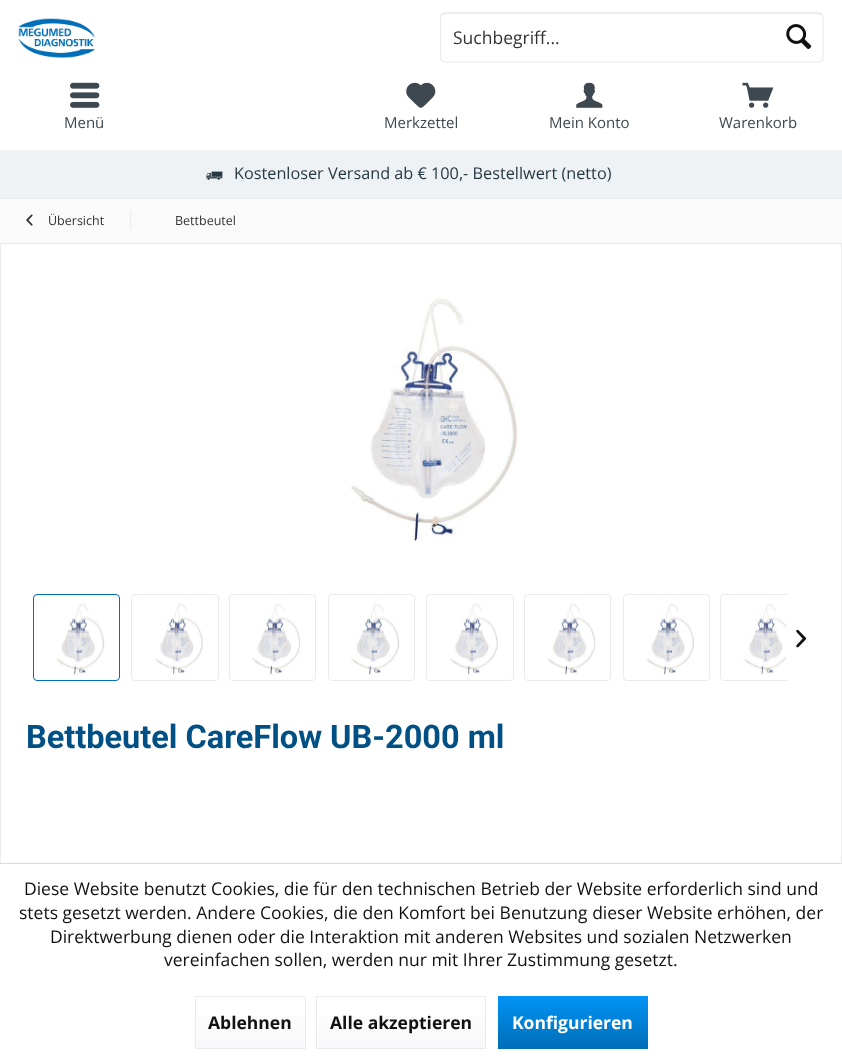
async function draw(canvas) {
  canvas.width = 842
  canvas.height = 1061
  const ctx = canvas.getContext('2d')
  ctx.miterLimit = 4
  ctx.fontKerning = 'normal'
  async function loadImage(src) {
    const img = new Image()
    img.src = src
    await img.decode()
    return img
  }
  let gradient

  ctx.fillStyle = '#fafafa'
  ctx.fillRect(0, 0, 842, 1061)
  ctx.fillStyle = '#fff'
  ctx.fillRect(0, 0, 842, 150)
  ctx.drawImage(await loadImage('image0.png'), 18, 18, 77, 40)
  ctx.beginPath()
  ctx.moveTo(442, 14.5)
  ctx.lineTo(445, 13)
  ctx.lineTo(819, 13)
  ctx.lineTo(822, 14.5)
  ctx.strokeStyle = '#dbdbe5'
  ctx.lineWidth = 1.2
  ctx.stroke()
  ctx.beginPath()
  ctx.moveTo(822, 14.5)
  ctx.bezierCurveTo(822.5, 15, 823, 16.5, 823, 17.5)
  ctx.lineTo(823, 57.5)
  ctx.bezierCurveTo(823, 58.5, 822.5, 60, 822, 60.5)
  ctx.bezierCurveTo(821, 61.5, 820, 62, 819, 62)
  ctx.lineTo(445, 62)
  ctx.bezierCurveTo(444, 62, 442.5, 61.5, 442, 60.5)
  ctx.bezierCurveTo(441, 60, 440.5, 58.5, 440.5, 57.5)
  ctx.lineTo(440.5, 17.5)
  ctx.bezierCurveTo(440.5, 16.5, 441, 15, 442, 14.5)
  ctx.strokeStyle = '#eaeaf0'
  ctx.stroke()
  ctx.font = '17.5px Open Sans'
  ctx.fillStyle = '#333'
  ctx.fillText('Suchbegriff...', 453, 44)
  ctx.drawImage(await loadImage('image1.png'), 786, 24, 26, 25)
  ctx.drawImage(await loadImage('image2.png'), 70, 82, 30, 26)
  ctx.font = '15px Open Sans'
  ctx.fillStyle = '#3e4851'
  ctx.fillText('Menü', 64, 128)
  ctx.drawImage(await loadImage('image3.png'), 406, 82, 30, 26)
  ctx.fillText('Merkzettel', 384, 128)
  ctx.drawImage(await loadImage('image4.png'), 576, 82, 27, 26)
  ctx.fillText('Mein Konto', 549, 128)
  ctx.drawImage(await loadImage('image5.png'), 742, 82, 32, 26)
  ctx.fillText('Warenkorb', 719, 128)
  ctx.fillStyle = '#eef2f5'
  ctx.fillRect(0, 150, 842, 48)
  ctx.drawImage(await loadImage('image6.png'), 206, 171, 17, 9)
  ctx.font = '16.25px Open Sans'
  ctx.fillStyle = '#263842'
  ctx.fillText('Kostenloser Versand ab € 100,- Bestellwert (netto)', 234, 179)
  ctx.fillStyle = '#eaeaf0'
  ctx.fillRect(0, 198, 842, 1)
  ctx.drawImage(await loadImage('image7.png'), 26, 214, 7, 12)
  ctx.font = '12.5px Open Sans'
  ctx.fillStyle = '#333'
  ctx.fillText('Übersicht', 48, 225)
  ctx.fillStyle = '#eaeaf0'
  ctx.fillRect(130, 211, 1, 18)
  ctx.fillStyle = '#333'
  ctx.fillText('Bettbeutel', 175, 225)
  ctx.fillStyle = '#fff'
  ctx.fillRect(1, 244, 840, 619)
  ctx.fillStyle = '#eaeaf0'
  ctx.fillRect(0, 243, 842, 1)
  ctx.fillRect(841, 243, 1, 620)
  ctx.fillRect(0, 243, 1, 620)
  ctx.drawImage(await loadImage('image8.png'), 349, 298, 169, 245)
  ctx.beginPath()
  ctx.roundRect(33.5, 594.5, 86, 86, 3.5)
  ctx.strokeStyle = '#006eb8'
  ctx.lineWidth = 1
  ctx.stroke()
  ctx.drawImage(await loadImage('image9.png'), 55, 603, 50, 72)
  ctx.beginPath()
  ctx.roundRect(131.5, 594.5, 87, 86, 3.5)
  ctx.strokeStyle = '#eaeaf0'
  ctx.stroke()
  ctx.drawImage(await loadImage('image10.png'), 154, 603, 49, 72)
  ctx.beginPath()
  ctx.roundRect(229.5, 594.5, 86, 86, 3.5)
  ctx.stroke()
  ctx.drawImage(await loadImage('image11.png'), 252, 603, 49, 72)
  ctx.beginPath()
  ctx.roundRect(328.5, 594.5, 86, 86, 3.5)
  ctx.stroke()
  ctx.drawImage(await loadImage('image9.png'), 350, 603, 50, 72)
  ctx.beginPath()
  ctx.roundRect(426.5, 594.5, 87, 86, 3.5)
  ctx.stroke()
  ctx.drawImage(await loadImage('image10.png'), 449, 603, 49, 72)
  ctx.beginPath()
  ctx.roundRect(524.5, 594.5, 86, 86, 3.5)
  ctx.stroke()
  ctx.drawImage(await loadImage('image12.png'), 547, 603, 49, 72)
  ctx.beginPath()
  ctx.roundRect(623.5, 594.5, 86, 86, 3.5)
  ctx.stroke()
  ctx.drawImage(await loadImage('image13.png'), 645, 603, 50, 72)
  ctx.beginPath()
  ctx.roundRect(720.5, 594.5, 87, 86, 3.5)
  ctx.stroke()
  ctx.drawImage(await loadImage('image14.png'), 743, 603, 43, 72)
  ctx.fillStyle = '#fff'
  ctx.beginPath()
  ctx.roundRect(786, 594, 30, 87, [4, 0, 0, 4])
  ctx.fill()
  ctx.beginPath()
  ctx.roundRect(786.5, 594.5, 29, 86, [3.5, 0, 0, 3.5])
  ctx.strokeStyle = '#ffffffd9'
  ctx.stroke()
  ctx.drawImage(await loadImage('image15.png'), 796, 629, 11, 19)
  ctx.font = 'bold 32.5px Roboto'
  ctx.fillStyle = '#005085'
  ctx.fillText('Bettbeutel CareFlow UB-2000 ml', 26, 748)
  ctx.fillStyle = '#fff'
  ctx.fillRect(0, 864, 842, 197)
  ctx.fillStyle = '#dadae5'
  ctx.fillRect(0, 863, 842, 1)
  ctx.font = '17.5px Open Sans'
  ctx.fillStyle = '#111'
  ctx.fillText('Diese Website benutzt Cookies, die für den technischen Betrieb der Website erforderlich sind und', 24, 895)
  ctx.fillText('stets gesetzt werden. Andere Cookies, die den Komfort bei Benutzung dieser Website erhöhen, der', 19, 919)
  ctx.fillText('Direktwerbung dienen oder die Interaktion mit anderen Websites und sozialen Netzwerken', 50, 943)
  ctx.fillText('vereinfachen sollen, werden nur mit Ihrer Zustimmung gesetzt.', 164, 966)
  gradient = ctx.createLinearGradient(251, 998, 251, 1048)
  gradient.addColorStop(0, '#fff')
  gradient.addColorStop(1, '#f8f8fa')
  ctx.fillStyle = gradient
  ctx.fillRect(196, 1016, 109, 32)
  ctx.strokeStyle = '#eaeaf0'
  ctx.strokeRect(195.5, 996.5, 110, 52)
  ctx.font = 'bold 17.5px Open Sans'
  ctx.fillStyle = '#111'
  ctx.fillText('Ablehnen', 208, 1029)
  gradient = ctx.createLinearGradient(401, 998, 401, 1048)
  gradient.addColorStop(0, '#fff')
  gradient.addColorStop(1, '#f8f8fa')
  ctx.fillStyle = gradient
  ctx.fillRect(318, 1016, 167, 32)
  ctx.strokeRect(316.5, 996.5, 169, 52)
  ctx.fillStyle = '#111'
  ctx.fillText('Alle akzeptieren', 330, 1029)
  gradient = ctx.createLinearGradient(573, 996, 573, 1049)
  gradient.addColorStop(0, '#0093f5')
  gradient.addColorStop(1, '#006eb8')
  ctx.fillStyle = gradient
  ctx.fillRect(498, 996, 150, 53)
  ctx.fillStyle = '#fff'
  ctx.fillText('Konfigurieren', 512, 1029)
}

draw(document.querySelector('canvas'))
